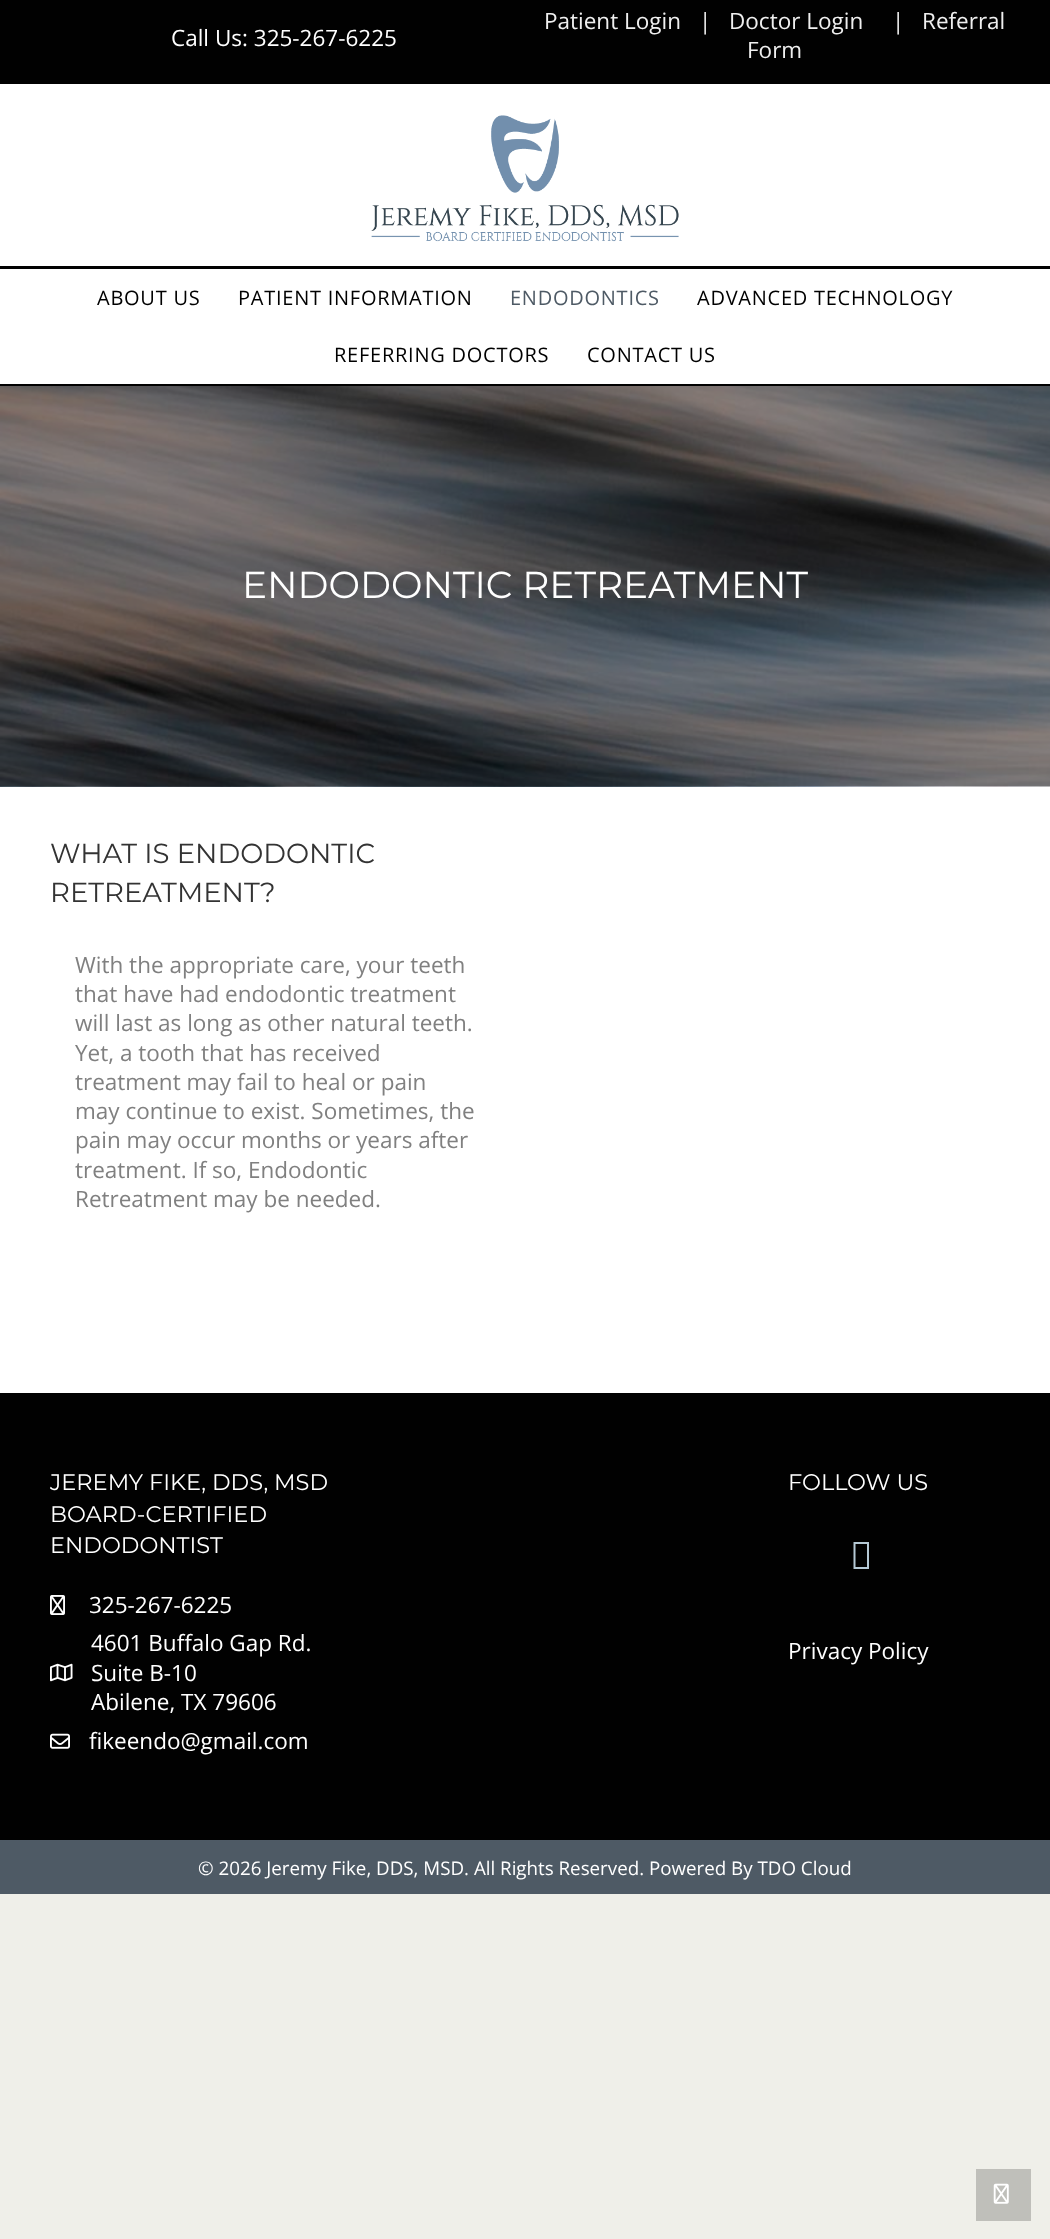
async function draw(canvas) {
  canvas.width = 1050
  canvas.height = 2239
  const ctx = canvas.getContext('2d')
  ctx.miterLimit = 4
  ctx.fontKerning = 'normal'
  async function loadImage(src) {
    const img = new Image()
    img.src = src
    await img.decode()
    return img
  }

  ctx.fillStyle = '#efefe9'
  ctx.fillRect(0, 0, 1050, 2239)
  ctx.fillStyle = '#010101'
  ctx.fillRect(0, 0, 1050, 84)
  ctx.font = '22.5px Open Sans'
  ctx.fillStyle = '#fff'
  ctx.fillText('Call Us: 325-267-6225', 171, 46)
  ctx.fillStyle = '#efefef'
  ctx.fillText('Patient Login', 544, 29)
  ctx.fillText('|', 699, 29)
  ctx.fillText('Doctor Login', 729, 29)
  ctx.fillText('|', 892, 29)
  ctx.fillText('Referral', 922, 29)
  ctx.fillText('Form', 747, 58)
  ctx.fillStyle = '#fff'
  ctx.fillRect(0, 84, 1050, 182)
  ctx.drawImage(await loadImage('image0.png'), 371, 115, 308, 127)
  ctx.fillRect(0, 269, 1050, 115)
  ctx.fillStyle = '#010101'
  ctx.fillRect(0, 266, 1050, 3)
  ctx.fillRect(0, 384, 1050, 2)
  ctx.letterSpacing = '0.75px'
  ctx.font = '20px Open Sans'
  ctx.fillStyle = '#000'
  ctx.fillText('ABOUT US', 97, 305)
  ctx.fillText('PATIENT INFORMATION', 238, 305)
  ctx.fillStyle = '#4e5a65'
  ctx.fillText('ENDODONTICS', 510, 305)
  ctx.fillStyle = '#000'
  ctx.fillText('ADVANCED TECHNOLOGY', 697, 305)
  ctx.fillText('REFERRING DOCTORS', 334, 362)
  ctx.fillText('CONTACT US', 587, 362)
  ctx.fillStyle = '#fff'
  ctx.fillRect(0, 787, 1050, 606)
  ctx.drawImage(await loadImage('image1.png'), 0, 386, 1050, 401)
  ctx.letterSpacing = '0px'
  ctx.font = '100 37.5px Montserrat'
  ctx.fillText('ENDODONTIC RETREATMENT', 242, 598)
  ctx.font = '100 27.5px Montserrat'
  ctx.fillStyle = '#333'
  ctx.fillText('WHAT IS ENDODONTIC', 50, 863)
  ctx.fillText('RETREATMENT?', 50, 902)
  ctx.font = '22.5px Open Sans'
  ctx.fillStyle = '#808080'
  ctx.fillText('With the appropriate care, your teeth', 75, 973)
  ctx.fillText('that have had endodontic treatment', 75, 1002)
  ctx.fillText('will last as long as other natural teeth.', 75, 1031)
  ctx.fillText('Yet, a tooth that has received', 75, 1061)
  ctx.fillText('treatment may fail to heal or pain', 75, 1090)
  ctx.fillText('may continue to exist. Sometimes, the', 75, 1119)
  ctx.fillText('pain may occur months or years after', 75, 1148)
  ctx.fillText('treatment. If so, Endodontic', 75, 1178)
  ctx.fillText('Retreatment may be needed.', 75, 1207)
  ctx.fillStyle = '#010101'
  ctx.fillRect(0, 1393, 1050, 447)
  ctx.font = '100 22.5px Montserrat'
  ctx.fillStyle = '#fff'
  ctx.fillText('JEREMY FIKE, DDS, MSD', 50, 1490)
  ctx.fillText('BOARD-CERTIFIED', 50, 1522)
  ctx.fillText('ENDODONTIST', 50, 1553)
  ctx.drawImage(await loadImage('image2.png'), 50, 1595, 15, 20)
  ctx.font = '22.5px Open Sans'
  ctx.fillText('325-267-6225', 89, 1613)
  ctx.drawImage(await loadImage('image3.png'), 50, 1663, 23, 19)
  ctx.fillText('4601 Buffalo Gap Rd.', 91, 1651)
  ctx.fillText('Suite B-10', 91, 1681)
  ctx.fillText('Abilene, TX 79606', 91, 1710)
  ctx.drawImage(await loadImage('image4.png'), 50, 1733, 20, 16)
  ctx.fillText('fikeendo@gmail.com', 89, 1749)
  ctx.font = '100 22.5px Montserrat'
  ctx.fillText('FOLLOW US', 788, 1490)
  ctx.fillStyle = '#b5c9d5'
  ctx.beginPath()
  ctx.moveTo(853.5, 1569)
  ctx.lineTo(853.5, 1542)
  ctx.lineTo(869, 1542)
  ctx.lineTo(869, 1569)
  ctx.closePath()
  ctx.moveTo(855.5, 1567)
  ctx.lineTo(867, 1567)
  ctx.lineTo(867, 1544)
  ctx.lineTo(855.5, 1544)
  ctx.closePath()
  ctx.fill()
  ctx.font = '22.5px Open Sans'
  ctx.fillStyle = '#fff'
  ctx.fillText('Privacy Policy', 788, 1659)
  ctx.fillStyle = '#4e5a65'
  ctx.fillRect(0, 1840, 1050, 54)
  ctx.font = '18.75px Open Sans'
  ctx.fillStyle = '#fff'
  ctx.fillText('© 2026 Jeremy Fike, DDS, MSD. All Rights Reserved. Powered By TDO Cloud', 198, 1875)
  ctx.fillStyle = '#bfbfba'
  ctx.fillRect(976, 2169, 55, 52)
  ctx.drawImage(await loadImage('image5.png'), 993, 2183, 16, 21)
}

draw(document.querySelector('canvas'))
